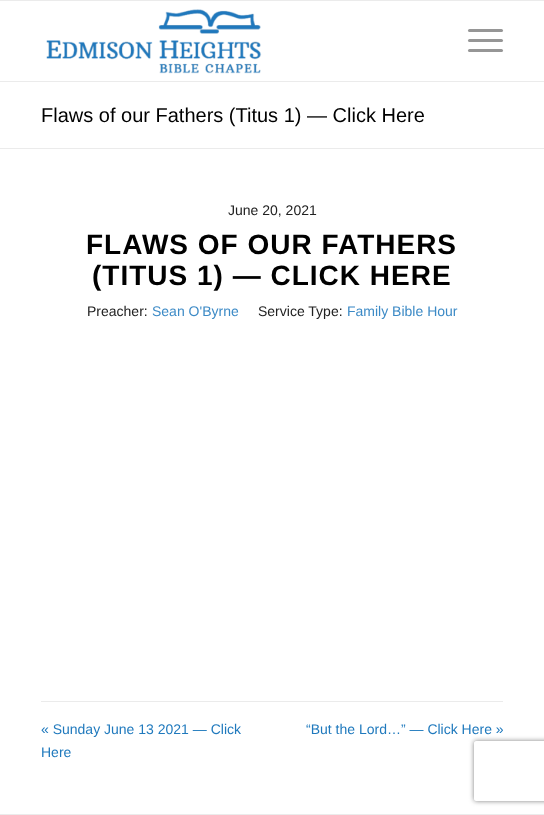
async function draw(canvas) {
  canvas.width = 544
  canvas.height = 815
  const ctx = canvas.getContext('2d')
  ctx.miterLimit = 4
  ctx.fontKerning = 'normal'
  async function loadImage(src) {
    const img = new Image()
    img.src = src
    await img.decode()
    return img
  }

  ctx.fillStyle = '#fff'
  ctx.fillRect(0, 0, 544, 815)
  ctx.fillStyle = '#ebebeb'
  ctx.fillRect(0, 0, 544, 1)
  ctx.fillRect(0, 81, 544, 1)
  ctx.drawImage(await loadImage('image0.png'), 46, 9, 216, 65)
  ctx.fillStyle = '#969696'
  ctx.beginPath()
  ctx.roundRect(468, 39, 35, 3, 1.5)
  ctx.fill()
  ctx.beginPath()
  ctx.roundRect(468, 29, 35, 3, 1.5)
  ctx.fill()
  ctx.beginPath()
  ctx.roundRect(468, 49, 35, 3, 1.5)
  ctx.fill()
  ctx.font = '20px Liberation Sans'
  ctx.fillStyle = '#000'
  ctx.fillText('Flaws of our Fathers (Titus 1) — Click Here', 41, 122)
  ctx.fillStyle = '#ebebeb'
  ctx.fillRect(0, 148, 544, 1)
  ctx.font = '14px Liberation Sans'
  ctx.fillStyle = '#212121'
  ctx.fillText('June 20, 2021', 228, 215)
  ctx.letterSpacing = '1px'
  ctx.font = 'bold 28px Liberation Sans'
  ctx.fillStyle = '#000'
  ctx.fillText('FLAWS OF OUR FATHERS', 86, 254)
  ctx.fillText('(TITUS 1) — CLICK HERE', 92, 285)
  ctx.letterSpacing = '0px'
  ctx.font = '14px Liberation Sans'
  ctx.fillStyle = '#212121'
  ctx.fillText('Preacher:', 87, 316)
  ctx.fillStyle = '#3c8ac6'
  ctx.fillText('Sean O\'Byrne', 152, 316)
  ctx.fillStyle = '#212121'
  ctx.fillText('Service Type:', 258, 316)
  ctx.fillStyle = '#3c8ac6'
  ctx.fillText('Family Bible Hour', 347, 316)
  ctx.fillStyle = '#ebebeb'
  ctx.fillRect(41, 701, 462, 1)
  ctx.fillStyle = '#1f79bd'
  ctx.fillText('« Sunday June 13 2021 — Click', 41, 734)
  ctx.fillText('Here', 41, 757)
  ctx.save()
  ctx.beginPath()
  ctx.moveTo(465, 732)
  ctx.lineTo(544, 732)
  ctx.lineTo(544, 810)
  ctx.lineTo(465, 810)
  ctx.closePath()
  ctx.moveTo(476, 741)
  ctx.lineTo(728, 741)
  ctx.bezierCurveTo(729, 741, 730, 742, 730, 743)
  ctx.lineTo(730, 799)
  ctx.bezierCurveTo(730, 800, 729, 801, 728, 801)
  ctx.lineTo(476, 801)
  ctx.bezierCurveTo(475, 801, 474, 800, 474, 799)
  ctx.lineTo(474, 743)
  ctx.bezierCurveTo(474, 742, 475, 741, 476, 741)
  ctx.closePath()
  ctx.clip('evenodd')
  ctx.fillStyle = '#808080'
  ctx.filter = 'blur(2.5px)'
  ctx.beginPath()
  ctx.roundRect(474, 741, 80, 60, 2)
  ctx.fill()
  ctx.filter = 'none'
  ctx.restore()
  ctx.fillText('“But the Lord…” — Click Here »', 306, 734)
  ctx.fillStyle = '#ebebeb'
  ctx.fillRect(0, 814, 544, 1)
}

draw(document.querySelector('canvas'))
